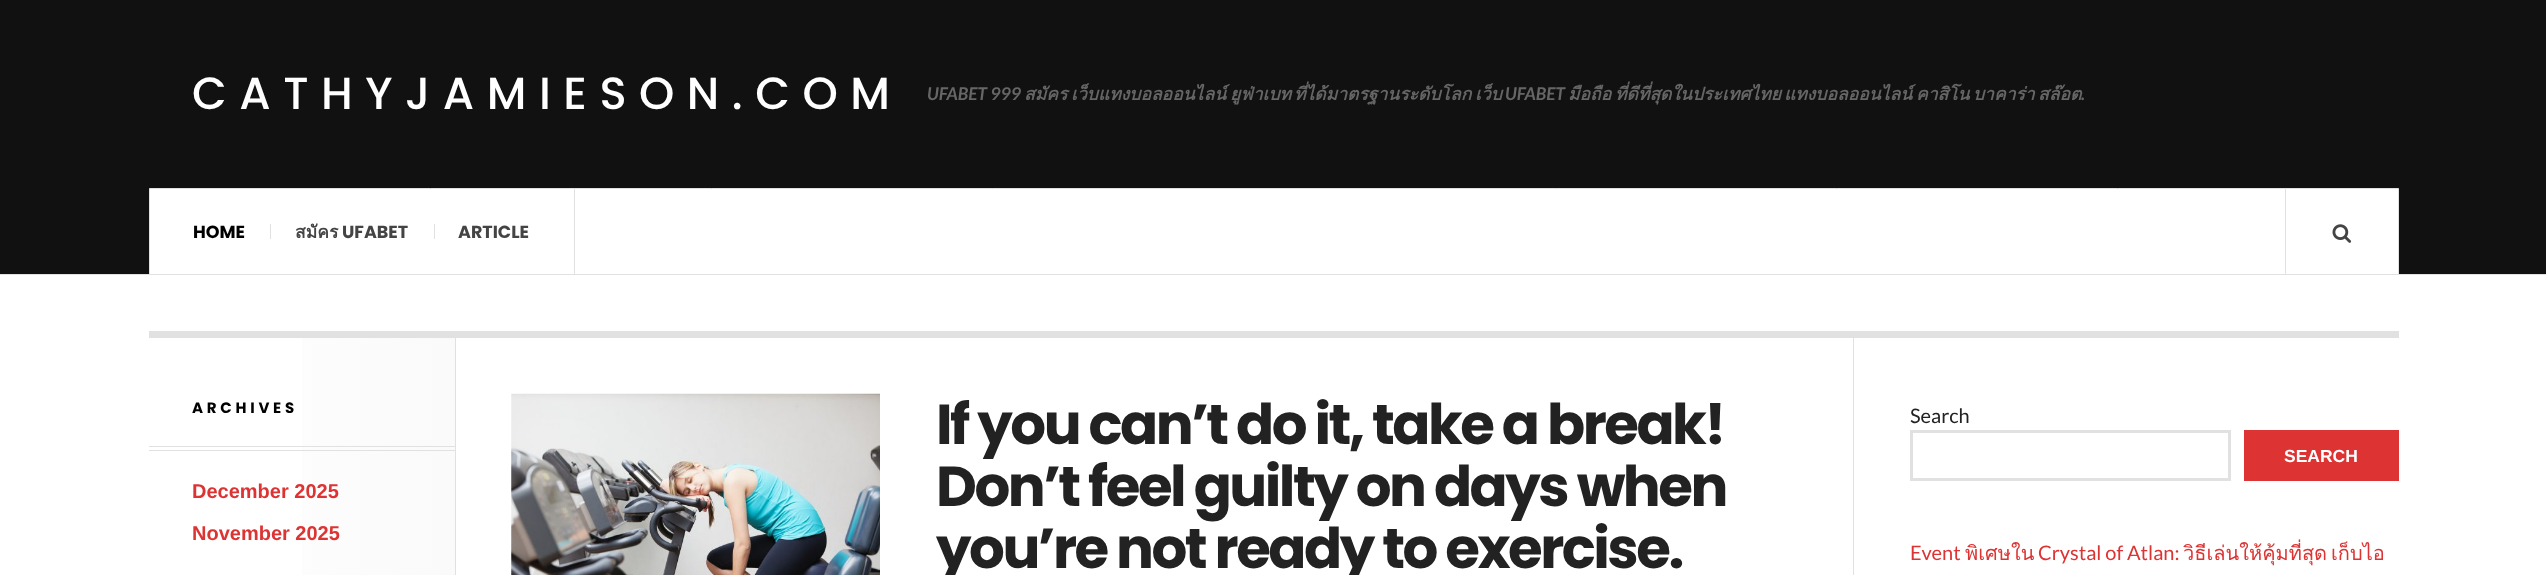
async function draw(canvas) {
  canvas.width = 2546
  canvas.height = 575
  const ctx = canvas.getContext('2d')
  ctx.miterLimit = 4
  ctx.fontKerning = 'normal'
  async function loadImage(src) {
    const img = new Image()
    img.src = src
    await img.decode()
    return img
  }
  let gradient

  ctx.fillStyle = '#fff'
  ctx.fillRect(0, 0, 2546, 575)
  ctx.fillStyle = '#111'
  ctx.fillRect(0, 0, 2546, 274)
  ctx.fillStyle = '#e1e1e1'
  ctx.fillRect(0, 274, 2546, 1)
  ctx.letterSpacing = '12.5px'
  ctx.font = '500 45px Poppins'
  ctx.fillStyle = '#fff'
  ctx.fillText('CATHYJAMIESON.COM', 192, 109)
  ctx.letterSpacing = '0px'
  ctx.font = 'italic bold 17.5px Lato'
  ctx.fillStyle = '#666'
  ctx.fillText('UFABET 999', 927, 100)
  ctx.font = 'italic bold 17.5px Loma'
  ctx.fillText('สมัคร', 1024, 100)
  ctx.fillText('เว็บแทงบอลออนไลน์', 1071, 100)
  ctx.fillText('ยูฟ่าเบท', 1230, 100)
  ctx.fillText('ที่ได้มาตรฐานระดับโลก', 1294, 100)
  ctx.fillText('เว็บ', 1475, 100)
  ctx.font = 'italic bold 17.5px Lato'
  ctx.fillText('UFABET', 1505, 100)
  ctx.font = 'italic bold 17.5px Loma'
  ctx.fillText('มือถือ', 1568, 100)
  ctx.fillText('ที่ดีที่สุดในประเทศไทย', 1615, 100)
  ctx.fillText('แทงบอลออนไลน์', 1784, 100)
  ctx.fillText('คาสิโน', 1916, 100)
  ctx.fillText('บาคาร่า', 1973, 100)
  ctx.fillText('สล๊อต', 2038, 100)
  ctx.font = 'italic bold 17.5px Lato'
  ctx.fillText('.', 2081, 100)
  ctx.fillStyle = '#fff'
  ctx.beginPath()
  ctx.rect(149.5, 188.5, 2249, 86)
  ctx.fill()
  ctx.strokeStyle = '#e1e1e1'
  ctx.stroke()
  ctx.fillStyle = '#e1e1e1'
  ctx.fillRect(574, 189, 1, 85)
  ctx.font = 'bold 17.5px Poppins'
  ctx.fillStyle = '#000'
  ctx.fillText('HOME', 193, 238)
  ctx.fillStyle = '#e1e1e1'
  ctx.fillRect(270, 224, 1, 15)
  ctx.font = 'bold 17.5px Loma'
  ctx.fillStyle = '#444'
  ctx.fillText('สมัคร', 295, 238)
  ctx.font = 'bold 17.5px Poppins'
  ctx.fillText('UFABET', 342, 238)
  ctx.fillStyle = '#e1e1e1'
  ctx.fillRect(434, 224, 1, 15)
  ctx.fillStyle = '#444'
  ctx.fillText('ARTICLE', 458, 238)
  ctx.fillStyle = '#e1e1e1'
  ctx.fillRect(2285, 189, 1, 85)
  ctx.drawImage(await loadImage('image0.png'), 2332, 224, 20, 19)
  ctx.fillRect(149, 331, 2250, 7)
  gradient = ctx.createLinearGradient(149, 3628, 455, 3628)
  gradient.addColorStop(0, '#fff')
  gradient.addColorStop(1, '#fafafa')
  ctx.fillStyle = gradient
  ctx.fillRect(302, 338, 153, 237)
  ctx.fillStyle = '#e1e1e1'
  ctx.fillRect(149, 446, 306, 1)
  ctx.fillRect(149, 450, 306, 1)
  ctx.letterSpacing = '3.75px'
  ctx.font = 'bold 15px Poppins'
  ctx.fillStyle = '#000'
  ctx.fillText('ARCHIVES', 192, 413)
  ctx.letterSpacing = '0px'
  ctx.font = 'bold 20px Liberation Sans'
  ctx.fillStyle = '#d33'
  ctx.fillText('December 2025', 192, 498)
  ctx.fillText('November 2025', 192, 540)
  ctx.fillStyle = '#e1e1e1'
  ctx.beginPath()
  ctx.moveTo(150, 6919)
  ctx.lineTo(456, 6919)
  ctx.lineTo(456, 338)
  ctx.lineTo(455, 338)
  ctx.lineTo(455, 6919)
  ctx.closePath()
  ctx.fill()
  ctx.fillRect(1853, 338, 1, 237)
  ctx.drawImage(await loadImage('image1.png'), 511, 393, 369, 182)
  ctx.letterSpacing = '-2.5px'
  ctx.font = 'bold 56.25px Poppins'
  ctx.fillStyle = '#222'
  ctx.fillText('If you can’t do it, take a break!', 936, 444)
  ctx.fillText('Don’t feel guilty on days when', 936, 506)
  ctx.fillText('you’re not ready to exercise.', 936, 568)
  ctx.letterSpacing = '0px'
  ctx.font = '20px Lato'
  ctx.fillText('Search', 1910, 423)
  ctx.lineWidth = 3
  ctx.strokeRect(1911.5, 431.5, 318, 48)
  ctx.fillStyle = '#d33'
  ctx.fillRect(2244, 430, 155, 51)
  ctx.font = 'bold 17.5px Liberation Sans'
  ctx.fillStyle = '#fff'
  ctx.fillText('SEARCH', 2284, 462)
  ctx.font = '20px Lato'
  ctx.fillStyle = '#d33'
  ctx.fillText('Event', 1910, 560)
  ctx.font = '20px Loma'
  ctx.fillText('พิเศษใน', 1965, 560)
  ctx.font = '20px Lato'
  ctx.fillText('Crystal of Atlan:', 2038, 560)
  ctx.font = '20px Loma'
  ctx.fillText('วิธีเล่นให้คุ้มที่สุด', 2183, 560)
  ctx.fillText('เก็บไอ', 2331, 560)
}

draw(document.querySelector('canvas'))
